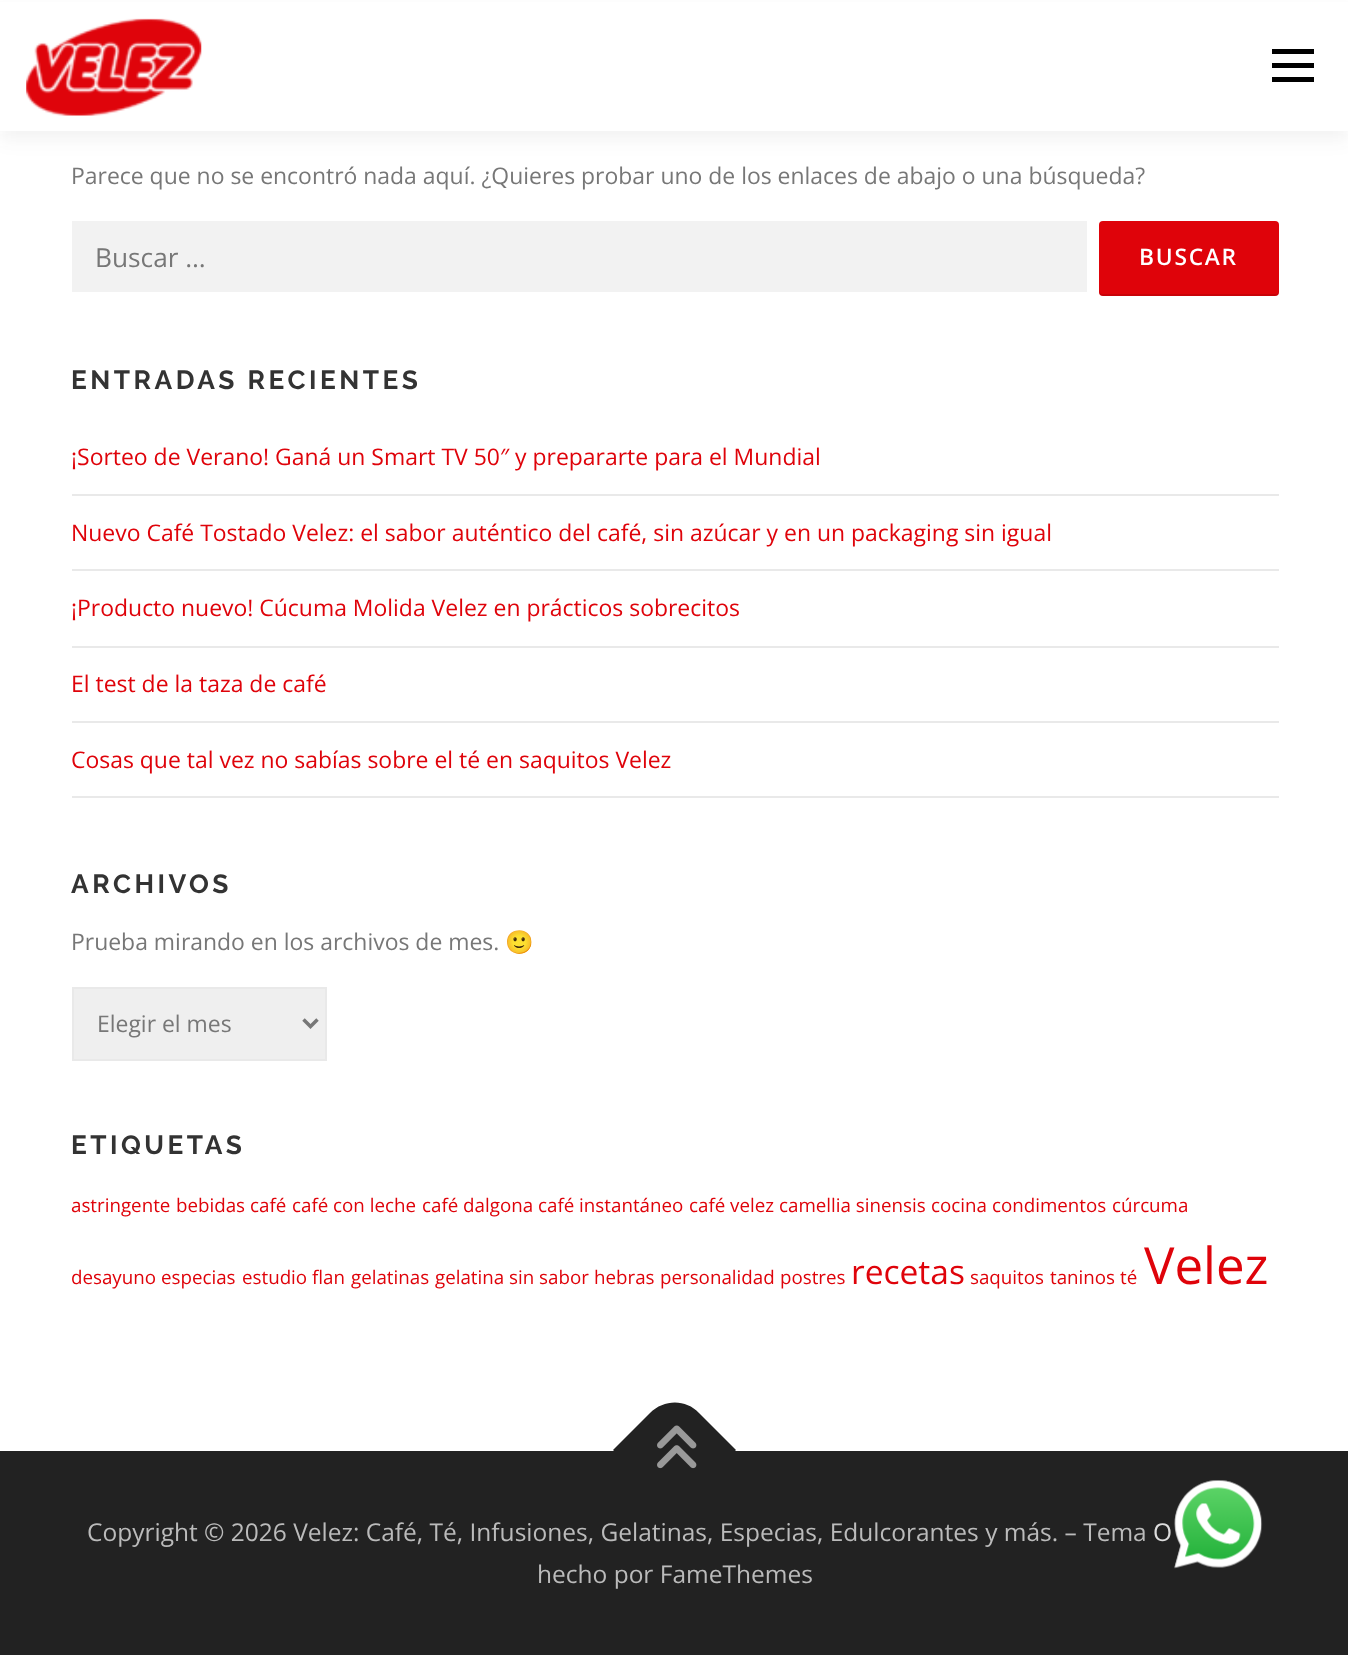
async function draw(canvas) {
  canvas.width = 1348
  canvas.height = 1655
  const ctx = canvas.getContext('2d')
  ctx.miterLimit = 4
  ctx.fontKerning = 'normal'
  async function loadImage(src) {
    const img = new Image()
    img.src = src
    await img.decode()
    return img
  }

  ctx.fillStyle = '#fff'
  ctx.fillRect(0, 0, 1348, 1655)
  ctx.fillStyle = '#3232320f'
  ctx.filter = 'blur(9px)'
  ctx.beginPath()
  ctx.rect(0, 9, 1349, 131)
  ctx.fill()
  ctx.filter = 'none'
  ctx.fillStyle = '#fff'
  ctx.fillRect(0, 2, 1348, 129)
  ctx.drawImage(await loadImage('image0.png'), 26, 18, 176, 98)
  ctx.fillStyle = '#000'
  ctx.fillRect(1272, 63, 42, 5)
  ctx.fillRect(1272, 49, 42, 5)
  ctx.fillRect(1272, 77, 42, 5)
  ctx.font = '22.95px Open Sans'
  ctx.fillStyle = '#777'
  ctx.fillText('Parece que no se encontró nada aquí. ¿Quieres probar uno de los enlaces de abajo o una búsqueda?', 71, 184)
  ctx.fillStyle = '#f2f2f2'
  ctx.fillRect(72, 221, 1015, 71)
  ctx.font = '26.25px Open Sans'
  ctx.fillStyle = '#777'
  ctx.fillText('Buscar …', 95, 267)
  ctx.fillStyle = '#df030a'
  ctx.beginPath()
  ctx.roundRect(1099, 221, 180, 75, 4)
  ctx.fill()
  ctx.fillStyle = '#0000001a'
  ctx.beginPath()
  ctx.moveTo(1099, 290)
  ctx.lineTo(1099, 292)
  ctx.bezierCurveTo(1099, 294, 1101, 296, 1103, 296)
  ctx.lineTo(1275, 296)
  ctx.bezierCurveTo(1277, 296, 1279, 294, 1279, 292)
  ctx.lineTo(1279, 290)
  ctx.bezierCurveTo(1279, 292, 1278, 294, 1276, 294)
  ctx.lineTo(1102, 294)
  ctx.bezierCurveTo(1101, 294, 1099, 292, 1099, 290)
  ctx.closePath()
  ctx.fill()
  ctx.letterSpacing = '1.75px'
  ctx.font = '600 22.75px Open Sans'
  ctx.fillStyle = '#fff'
  ctx.fillText('BUSCAR', 1139, 265)
  ctx.letterSpacing = '3.5px'
  ctx.font = 'bold 26.25px Raleway'
  ctx.fillStyle = '#333'
  ctx.fillText('ENTRADAS RECIENTES', 71, 389)
  ctx.fillStyle = '#e9e9e9'
  ctx.fillRect(72, 494, 1207, 2)
  ctx.letterSpacing = '0px'
  ctx.font = '22.95px Open Sans'
  ctx.fillStyle = '#df030a'
  ctx.fillText('¡Sorteo de Verano! Ganá un Smart TV 50″ y prepararte para el Mundial', 71, 465)
  ctx.fillStyle = '#e9e9e9'
  ctx.fillRect(72, 569, 1207, 2)
  ctx.fillStyle = '#df030a'
  ctx.fillText('Nuevo Café Tostado Velez: el sabor auténtico del café, sin azúcar y en un packaging sin igual', 71, 541)
  ctx.fillStyle = '#e9e9e9'
  ctx.fillRect(72, 646, 1207, 2)
  ctx.fillStyle = '#df030a'
  ctx.fillText('¡Producto nuevo! Cúcuma Molida Velez en prácticos sobrecitos', 71, 616)
  ctx.fillStyle = '#e9e9e9'
  ctx.fillRect(72, 721, 1207, 2)
  ctx.fillStyle = '#df030a'
  ctx.fillText('El test de la taza de café', 71, 692)
  ctx.fillStyle = '#e9e9e9'
  ctx.fillRect(72, 796, 1207, 2)
  ctx.fillStyle = '#df030a'
  ctx.fillText('Cosas que tal vez no sabías sobre el té en saquitos Velez', 71, 768)
  ctx.letterSpacing = '3.5px'
  ctx.font = 'bold 26.25px Raleway'
  ctx.fillStyle = '#333'
  ctx.fillText('ARCHIVOS', 71, 893)
  ctx.letterSpacing = '0px'
  ctx.font = '22.95px Open Sans'
  ctx.fillStyle = '#777'
  ctx.fillText('Prueba mirando en los archivos de mes.', 71, 950)
  ctx.font = '22.95px Noto Color Emoji'
  ctx.fillText('🙂', 505, 950)
  ctx.fillStyle = '#efefef'
  ctx.beginPath()
  ctx.rect(73, 988, 253, 72)
  ctx.fill()
  ctx.strokeStyle = '#e9e9e9'
  ctx.lineWidth = 2
  ctx.stroke()
  ctx.beginPath()
  ctx.moveTo(303.5, 1019.5)
  ctx.lineTo(310.5, 1026.5)
  ctx.lineTo(317.5, 1019.5)
  ctx.strokeStyle = '#777'
  ctx.lineWidth = 3.5
  ctx.stroke()
  ctx.font = '22.95px Open Sans'
  ctx.fillStyle = '#777'
  ctx.fillText('Elegir el mes', 97, 1032)
  ctx.letterSpacing = '3.5px'
  ctx.font = 'bold 26.25px Raleway'
  ctx.fillStyle = '#333'
  ctx.fillText('ETIQUETAS', 71, 1154)
  ctx.letterSpacing = '0px'
  ctx.font = '18.75px Open Sans'
  ctx.fillStyle = '#df030a'
  ctx.fillText('astringente', 71, 1212)
  ctx.fillText('bebidas', 176, 1212)
  ctx.fillText('café', 250, 1212)
  ctx.fillText('café con leche', 292, 1212)
  ctx.fillText('café dalgona', 422, 1212)
  ctx.fillText('café instantáneo', 538, 1212)
  ctx.fillText('café velez', 689, 1212)
  ctx.fillText('camellia sinensis', 779, 1212)
  ctx.fillText('cocina', 931, 1212)
  ctx.fillText('condimentos', 992, 1212)
  ctx.fillText('cúrcuma', 1112, 1212)
  ctx.fillText('desayuno', 71, 1284)
  ctx.fillText('especias', 161, 1284)
  ctx.fillText('estudio', 242, 1284)
  ctx.fillText('flan', 312, 1284)
  ctx.fillText('gelatinas', 351, 1284)
  ctx.fillText('gelatina sin sabor', 435, 1284)
  ctx.fillText('hebras', 594, 1284)
  ctx.fillText('personalidad', 660, 1284)
  ctx.fillText('postres', 780, 1284)
  ctx.font = '33.5px Open Sans'
  ctx.fillText('recetas', 851, 1284)
  ctx.font = '18.75px Open Sans'
  ctx.fillText('saquitos', 970, 1284)
  ctx.fillText('taninos', 1050, 1284)
  ctx.fillText('té', 1120, 1284)
  ctx.font = '51px Open Sans'
  ctx.fillText('Velez', 1144, 1284)
  ctx.fillStyle = '#222'
  ctx.fillRect(0, 1451, 1348, 204)
  ctx.beginPath()
  ctx.moveTo(613, 1450)
  ctx.lineTo(650, 1413)
  ctx.bezierCurveTo(664, 1399, 686, 1399, 699, 1413)
  ctx.lineTo(736, 1450)
  ctx.lineTo(675, 1512)
  ctx.closePath()
  ctx.fill()
  ctx.drawImage(await loadImage('image1.png'), 657, 1425, 40, 44)
  ctx.font = '24.5px Open Sans'
  ctx.fillStyle = '#bbb'
  ctx.fillText('Copyright © 2026 Velez: Café, Té, Infusiones, Gelatinas, Especias, Edulcorantes y más. – Tema', 87, 1541)
  ctx.fillStyle = '#ddd'
  ctx.fillText('O', 1153, 1541)
  ctx.fillStyle = '#bbb'
  ctx.fillText('hecho por FameThemes', 537, 1583)
  ctx.drawImage(await loadImage('image2.png'), 1174, 1480, 89, 89)
}

draw(document.querySelector('canvas'))
